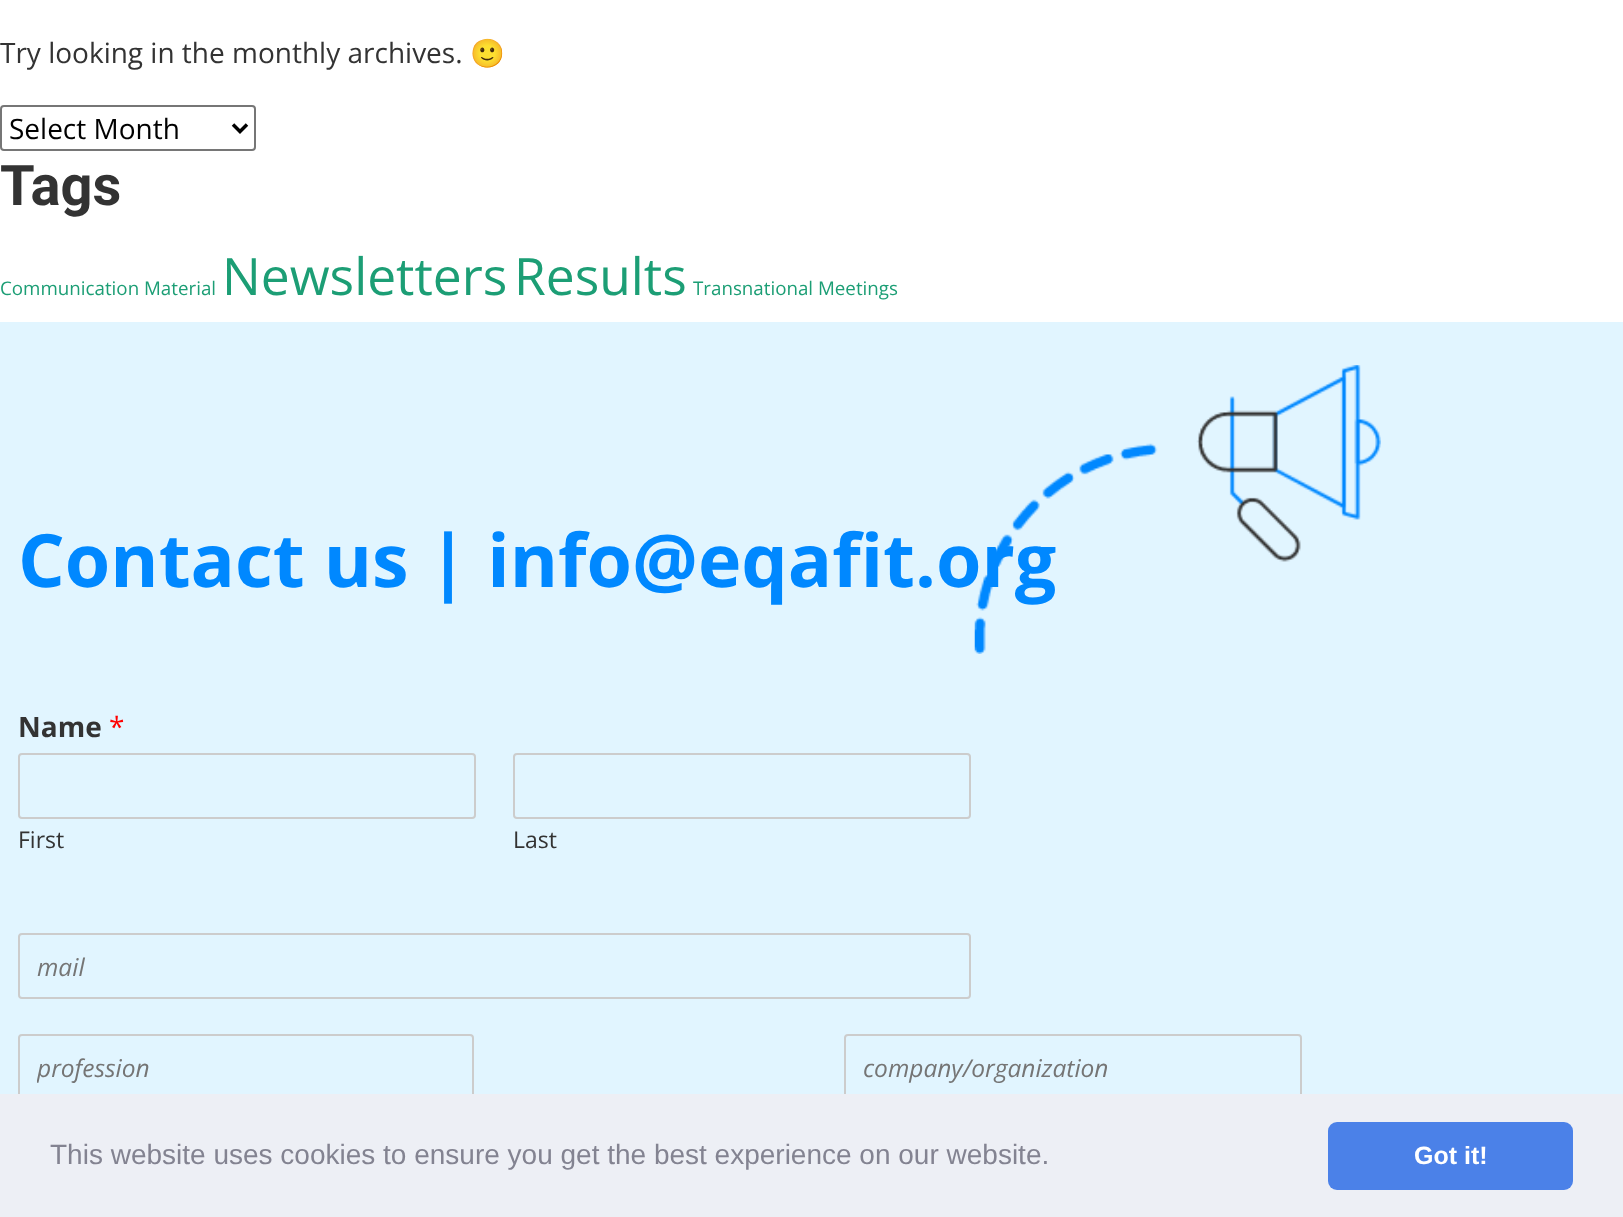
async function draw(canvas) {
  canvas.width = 1623
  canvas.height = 1217
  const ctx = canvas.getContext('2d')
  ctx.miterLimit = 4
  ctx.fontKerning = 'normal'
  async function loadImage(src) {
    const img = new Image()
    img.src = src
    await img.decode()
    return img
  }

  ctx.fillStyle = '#fff'
  ctx.fillRect(0, 0, 1623, 1217)
  ctx.font = '28px Open Sans'
  ctx.fillStyle = '#333'
  ctx.fillText('Try looking in the monthly archives.', 0, 63)
  ctx.font = '28px Noto Color Emoji'
  ctx.fillText('🙂', 470, 63)
  ctx.beginPath()
  ctx.roundRect(1, 106, 254, 44, 3)
  ctx.strokeStyle = '#767676'
  ctx.lineWidth = 2
  ctx.stroke()
  ctx.beginPath()
  ctx.moveTo(233, 124.5)
  ctx.lineTo(240, 131.5)
  ctx.lineTo(247, 124.5)
  ctx.strokeStyle = '#000'
  ctx.lineWidth = 3.5
  ctx.stroke()
  ctx.font = '28px Open Sans'
  ctx.fillStyle = '#000'
  ctx.fillText('Select Month', 9, 139)
  ctx.font = 'bold 56px Roboto'
  ctx.fillStyle = '#333'
  ctx.fillText('Tags', 0, 205)
  ctx.font = '18.75px Open Sans'
  ctx.fillStyle = '#1c9e75'
  ctx.fillText('Communication Material', 0, 295)
  ctx.font = '51.5px Open Sans'
  ctx.fillText('Newsletters', 222, 295)
  ctx.fillText('Results', 514, 295)
  ctx.font = '18.75px Open Sans'
  ctx.fillText('Transnational Meetings', 693, 295)
  ctx.fillStyle = '#e1f5ff'
  ctx.fillRect(0, 322, 1623, 772)
  ctx.drawImage(await loadImage('image0.png'), 974, 365, 407, 289)
  ctx.font = 'bold 73.5px Open Sans'
  ctx.fillStyle = '#08f'
  ctx.fillText('Contact us | info@eqafit.org', 18, 587)
  ctx.font = 'bold 28px Open Sans'
  ctx.fillStyle = '#333'
  ctx.fillText('Name', 18, 737)
  ctx.font = '28px Open Sans'
  ctx.fillStyle = '#f00'
  ctx.fillText('*', 109, 737)
  ctx.beginPath()
  ctx.roundRect(19, 754, 456, 64, 3)
  ctx.strokeStyle = '#ccc'
  ctx.lineWidth = 2
  ctx.stroke()
  ctx.font = '23px Open Sans'
  ctx.fillStyle = '#333'
  ctx.fillText('First', 18, 848)
  ctx.beginPath()
  ctx.roundRect(514, 754, 456, 64, 3)
  ctx.stroke()
  ctx.fillText('Last', 513, 848)
  ctx.beginPath()
  ctx.roundRect(19, 934, 951, 64, 3)
  ctx.stroke()
  ctx.font = 'italic 24.5px Open Sans'
  ctx.fillStyle = '#757575'
  ctx.fillText('mail', 37, 976)
  ctx.beginPath()
  ctx.roundRect(19, 1035, 454, 65, 3)
  ctx.stroke()
  ctx.save()
  ctx.beginPath()
  ctx.rect(37, 1052, 418, 33)
  ctx.clip()
  ctx.fillText('profession', 37, 1077)
  ctx.restore()
  ctx.beginPath()
  ctx.roundRect(845, 1035, 456, 65, 3)
  ctx.stroke()
  ctx.fillText('company/organization', 863, 1077)
  ctx.fillStyle = '#edeff5'
  ctx.fillRect(0, 1094, 1623, 123)
  ctx.font = '28px Liberation Sans'
  ctx.fillStyle = '#838391'
  ctx.fillText('This website uses cookies to ensure you get the best experience on our website.', 50, 1164)
  ctx.fillStyle = '#4b81e8'
  ctx.beginPath()
  ctx.roundRect(1328, 1122, 245, 68, 9)
  ctx.fill()
  ctx.font = 'bold 25px Liberation Sans'
  ctx.fillStyle = '#fff'
  ctx.fillText('Got it!', 1414, 1164)
}

draw(document.querySelector('canvas'))
